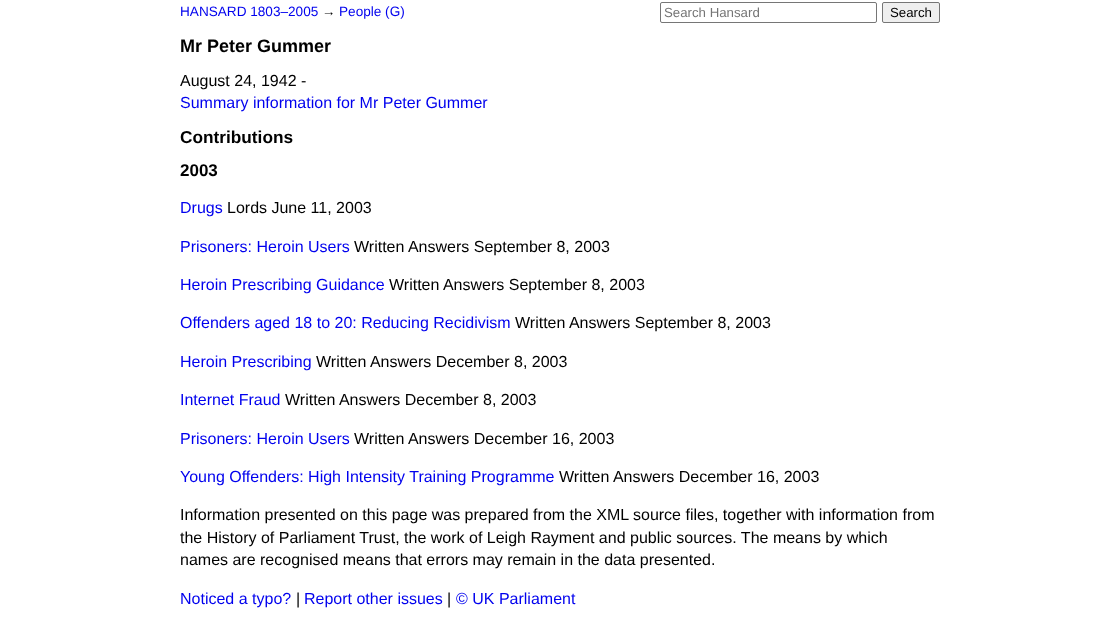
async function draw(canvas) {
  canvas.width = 1120
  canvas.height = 626
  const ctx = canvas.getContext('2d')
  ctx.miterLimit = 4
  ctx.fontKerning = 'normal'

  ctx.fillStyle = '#fff'
  ctx.fillRect(0, 0, 1120, 626)
  ctx.font = '13.6px Liberation Sans'
  ctx.fillStyle = '#00e'
  ctx.fillText('HANSARD 1803–2005', 180, 16)
  ctx.fillStyle = '#000'
  ctx.fillText('→', 322, 16)
  ctx.fillStyle = '#00e'
  ctx.fillText('People (G)', 339, 16)
  ctx.beginPath()
  ctx.roundRect(660.5, 2.5, 216, 20, 1.5)
  ctx.strokeStyle = '#767676'
  ctx.stroke()
  ctx.font = '13.25px Liberation Sans'
  ctx.fillStyle = '#757575'
  ctx.fillText('Search Hansard', 664, 17)
  ctx.fillStyle = '#efefef'
  ctx.beginPath()
  ctx.roundRect(882.5, 2.5, 57, 20, 1.5)
  ctx.fill()
  ctx.stroke()
  ctx.fillStyle = '#000'
  ctx.fillText('Search', 890, 17)
  ctx.font = 'bold 18px Liberation Sans'
  ctx.fillText('Mr Peter Gummer', 180, 52)
  ctx.font = '16px Liberation Sans'
  ctx.fillText('August 24, 1942 -', 180, 86)
  ctx.fillStyle = '#00e'
  ctx.fillText('Summary information for Mr Peter Gummer', 180, 108)
  ctx.font = 'bold 17.25px Liberation Sans'
  ctx.fillStyle = '#000'
  ctx.fillText('Contributions', 180, 143)
  ctx.font = 'bold 17px Liberation Sans'
  ctx.fillText('2003', 180, 176)
  ctx.font = '16px Liberation Sans'
  ctx.fillStyle = '#00e'
  ctx.fillText('Drugs', 180, 213)
  ctx.fillStyle = '#000'
  ctx.fillText('Lords June 11, 2003', 227, 213)
  ctx.fillStyle = '#00e'
  ctx.fillText('Prisoners: Heroin Users', 180, 252)
  ctx.fillStyle = '#000'
  ctx.fillText('Written Answers September 8, 2003', 354, 252)
  ctx.fillStyle = '#00e'
  ctx.fillText('Heroin Prescribing Guidance', 180, 290)
  ctx.fillStyle = '#000'
  ctx.fillText('Written Answers September 8, 2003', 389, 290)
  ctx.fillStyle = '#00e'
  ctx.fillText('Offenders aged 18 to 20: Reducing Recidivism', 180, 328)
  ctx.fillStyle = '#000'
  ctx.fillText('Written Answers September 8, 2003', 515, 328)
  ctx.fillStyle = '#00e'
  ctx.fillText('Heroin Prescribing', 180, 367)
  ctx.fillStyle = '#000'
  ctx.fillText('Written Answers December 8, 2003', 316, 367)
  ctx.fillStyle = '#00e'
  ctx.fillText('Internet Fraud', 180, 405)
  ctx.fillStyle = '#000'
  ctx.fillText('Written Answers December 8, 2003', 285, 405)
  ctx.fillStyle = '#00e'
  ctx.fillText('Prisoners: Heroin Users', 180, 444)
  ctx.fillStyle = '#000'
  ctx.fillText('Written Answers December 16, 2003', 354, 444)
  ctx.fillStyle = '#00e'
  ctx.fillText('Young Offenders: High Intensity Training Programme', 180, 482)
  ctx.fillStyle = '#000'
  ctx.fillText('Written Answers December 16, 2003', 559, 482)
  ctx.fillText('Information presented on this page was prepared from the XML source files, together with information from', 180, 520)
  ctx.fillText('the History of Parliament Trust, the work of Leigh Rayment and public sources. The means by which', 180, 543)
  ctx.fillText('names are recognised means that errors may remain in the data presented.', 180, 565)
  ctx.fillStyle = '#00e'
  ctx.fillText('Noticed a typo?', 180, 604)
  ctx.fillStyle = '#000'
  ctx.fillText('|', 296, 604)
  ctx.fillStyle = '#00e'
  ctx.fillText('Report other issues', 304, 604)
  ctx.fillStyle = '#000'
  ctx.fillText('|', 447, 604)
  ctx.fillStyle = '#00e'
  ctx.fillText('© UK Parliament', 456, 604)
}

draw(document.querySelector('canvas'))
